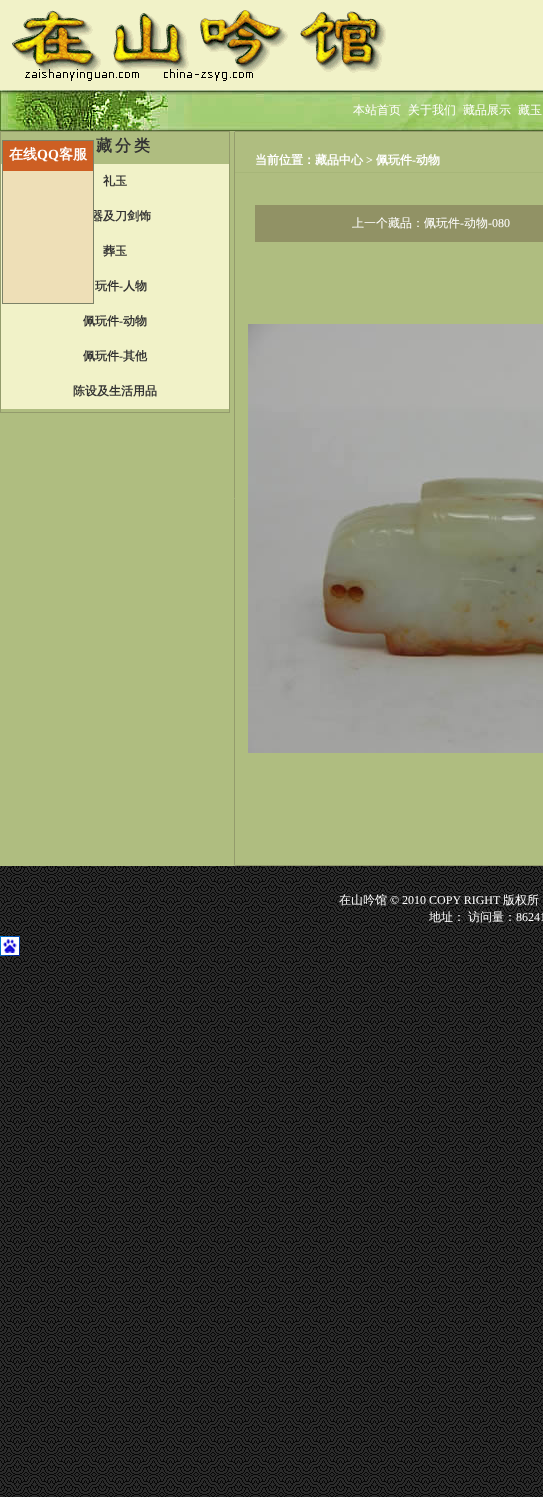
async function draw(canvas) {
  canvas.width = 543
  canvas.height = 1497
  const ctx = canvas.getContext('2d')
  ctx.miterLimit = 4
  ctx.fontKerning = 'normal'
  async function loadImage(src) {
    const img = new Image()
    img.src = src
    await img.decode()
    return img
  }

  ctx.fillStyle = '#fff'
  ctx.fillRect(0, 0, 543, 1497)
  ctx.drawImage(await loadImage('image0.png'), 0, 866, 543, 631)
  ctx.fillStyle = '#f1f2c8'
  ctx.fillRect(0, 0, 543, 90)
  ctx.drawImage(await loadImage('image1.png'), 12, 10, 374, 71)
  ctx.drawImage(await loadImage('image2.png'), 0, 90, 543, 41)
  ctx.font = '500 12px WenQuanYi Zen Hei'
  ctx.fillStyle = '#fff'
  ctx.fillText('本站首页', 353, 114)
  ctx.fillText('关于我们', 408, 114)
  ctx.fillText('藏品展示', 463, 114)
  ctx.fillText('藏玉', 518, 114)
  ctx.fillStyle = '#afbd80'
  ctx.fillRect(0, 131, 234, 735)
  ctx.strokeStyle = '#939b6c'
  ctx.strokeRect(0.5, 131.5, 229, 281)
  ctx.fillStyle = '#f1f2c8'
  ctx.fillRect(1, 164, 228, 245)
  ctx.font = 'bold 12px WenQuanYi Zen Hei'
  ctx.fillStyle = '#333'
  ctx.fillText('器及刀剑饰', 91, 220)
  ctx.fillStyle = '#eedfb7'
  ctx.fillRect(3, 171, 90, 132)
  ctx.strokeStyle = '#7c8268'
  ctx.strokeRect(2.5, 140.5, 91, 163)
  ctx.fillStyle = '#cd5f23'
  ctx.fillRect(3, 141, 90, 30)
  ctx.font = 'bold 14px WenQuanYi Zen Hei'
  ctx.fillStyle = '#fff'
  ctx.fillText('在线', 9, 159)
  ctx.font = 'bold 14px Liberation Serif'
  ctx.fillText('QQ', 37, 159)
  ctx.font = 'bold 14px WenQuanYi Zen Hei'
  ctx.fillText('客服', 59, 159)
  ctx.letterSpacing = '3px'
  ctx.font = 'bold 16px WenQuanYi Zen Hei'
  ctx.fillStyle = '#333'
  ctx.fillText('藏分类', 96, 151)
  ctx.letterSpacing = '0px'
  ctx.font = 'bold 12px WenQuanYi Zen Hei'
  ctx.fillText('礼玉', 103, 185)
  ctx.fillText('葬玉', 103, 255)
  ctx.fillText('玩件', 95, 290)
  ctx.font = 'bold 12px Liberation Serif'
  ctx.fillText('-', 119, 290)
  ctx.font = 'bold 12px WenQuanYi Zen Hei'
  ctx.fillText('人物', 123, 290)
  ctx.fillText('佩玩件', 83, 325)
  ctx.font = 'bold 12px Liberation Serif'
  ctx.fillText('-', 119, 325)
  ctx.font = 'bold 12px WenQuanYi Zen Hei'
  ctx.fillText('动物', 123, 325)
  ctx.fillText('佩玩件', 83, 360)
  ctx.font = 'bold 12px Liberation Serif'
  ctx.fillText('-', 119, 360)
  ctx.font = 'bold 12px WenQuanYi Zen Hei'
  ctx.fillText('其他', 123, 360)
  ctx.fillText('陈设及生活用品', 73, 395)
  ctx.fillStyle = '#afbd80'
  ctx.beginPath()
  ctx.rect(234.5, 131.5, 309, 734)
  ctx.fill()
  ctx.strokeStyle = '#939b6c'
  ctx.stroke()
  ctx.fillStyle = '#a7b679'
  ctx.fillRect(235, 172, 308, 1)
  ctx.fillStyle = '#fff'
  ctx.fillText('当前位置：藏品中心', 255, 164)
  ctx.font = 'bold 12px Liberation Serif'
  ctx.fillText('>', 366, 164)
  ctx.font = 'bold 12px WenQuanYi Zen Hei'
  ctx.fillText('佩玩件', 376, 164)
  ctx.font = 'bold 12px Liberation Serif'
  ctx.fillText('-', 412, 164)
  ctx.font = 'bold 12px WenQuanYi Zen Hei'
  ctx.fillText('动物', 416, 164)
  ctx.fillStyle = '#919265'
  ctx.fillRect(255, 205, 288, 37)
  ctx.font = '500 12px WenQuanYi Zen Hei'
  ctx.fillStyle = '#fff'
  ctx.fillText('上一个藏品：佩玩件', 352, 227)
  ctx.font = '12px Liberation Serif'
  ctx.fillText('-', 460, 227)
  ctx.font = '500 12px WenQuanYi Zen Hei'
  ctx.fillText('动物', 464, 227)
  ctx.font = '12px Liberation Serif'
  ctx.fillText('-080', 488, 227)
  ctx.drawImage(await loadImage('image3.png'), 248, 324, 295, 429)
  ctx.font = '500 12px WenQuanYi Zen Hei'
  ctx.fillText('在山吟馆', 339, 904)
  ctx.font = '12px Liberation Serif'
  ctx.fillText('© 2010 COPY RIGHT', 390, 904)
  ctx.font = '500 12px WenQuanYi Zen Hei'
  ctx.fillText('版权所', 503, 904)
  ctx.fillText('地址：', 429, 921)
  ctx.fillText('访问量：', 468, 921)
  ctx.font = '12px Liberation Serif'
  ctx.fillText('86241', 516, 921)
  ctx.drawImage(await loadImage('image4.png'), 0, 936, 20, 20)
}

draw(document.querySelector('canvas'))
